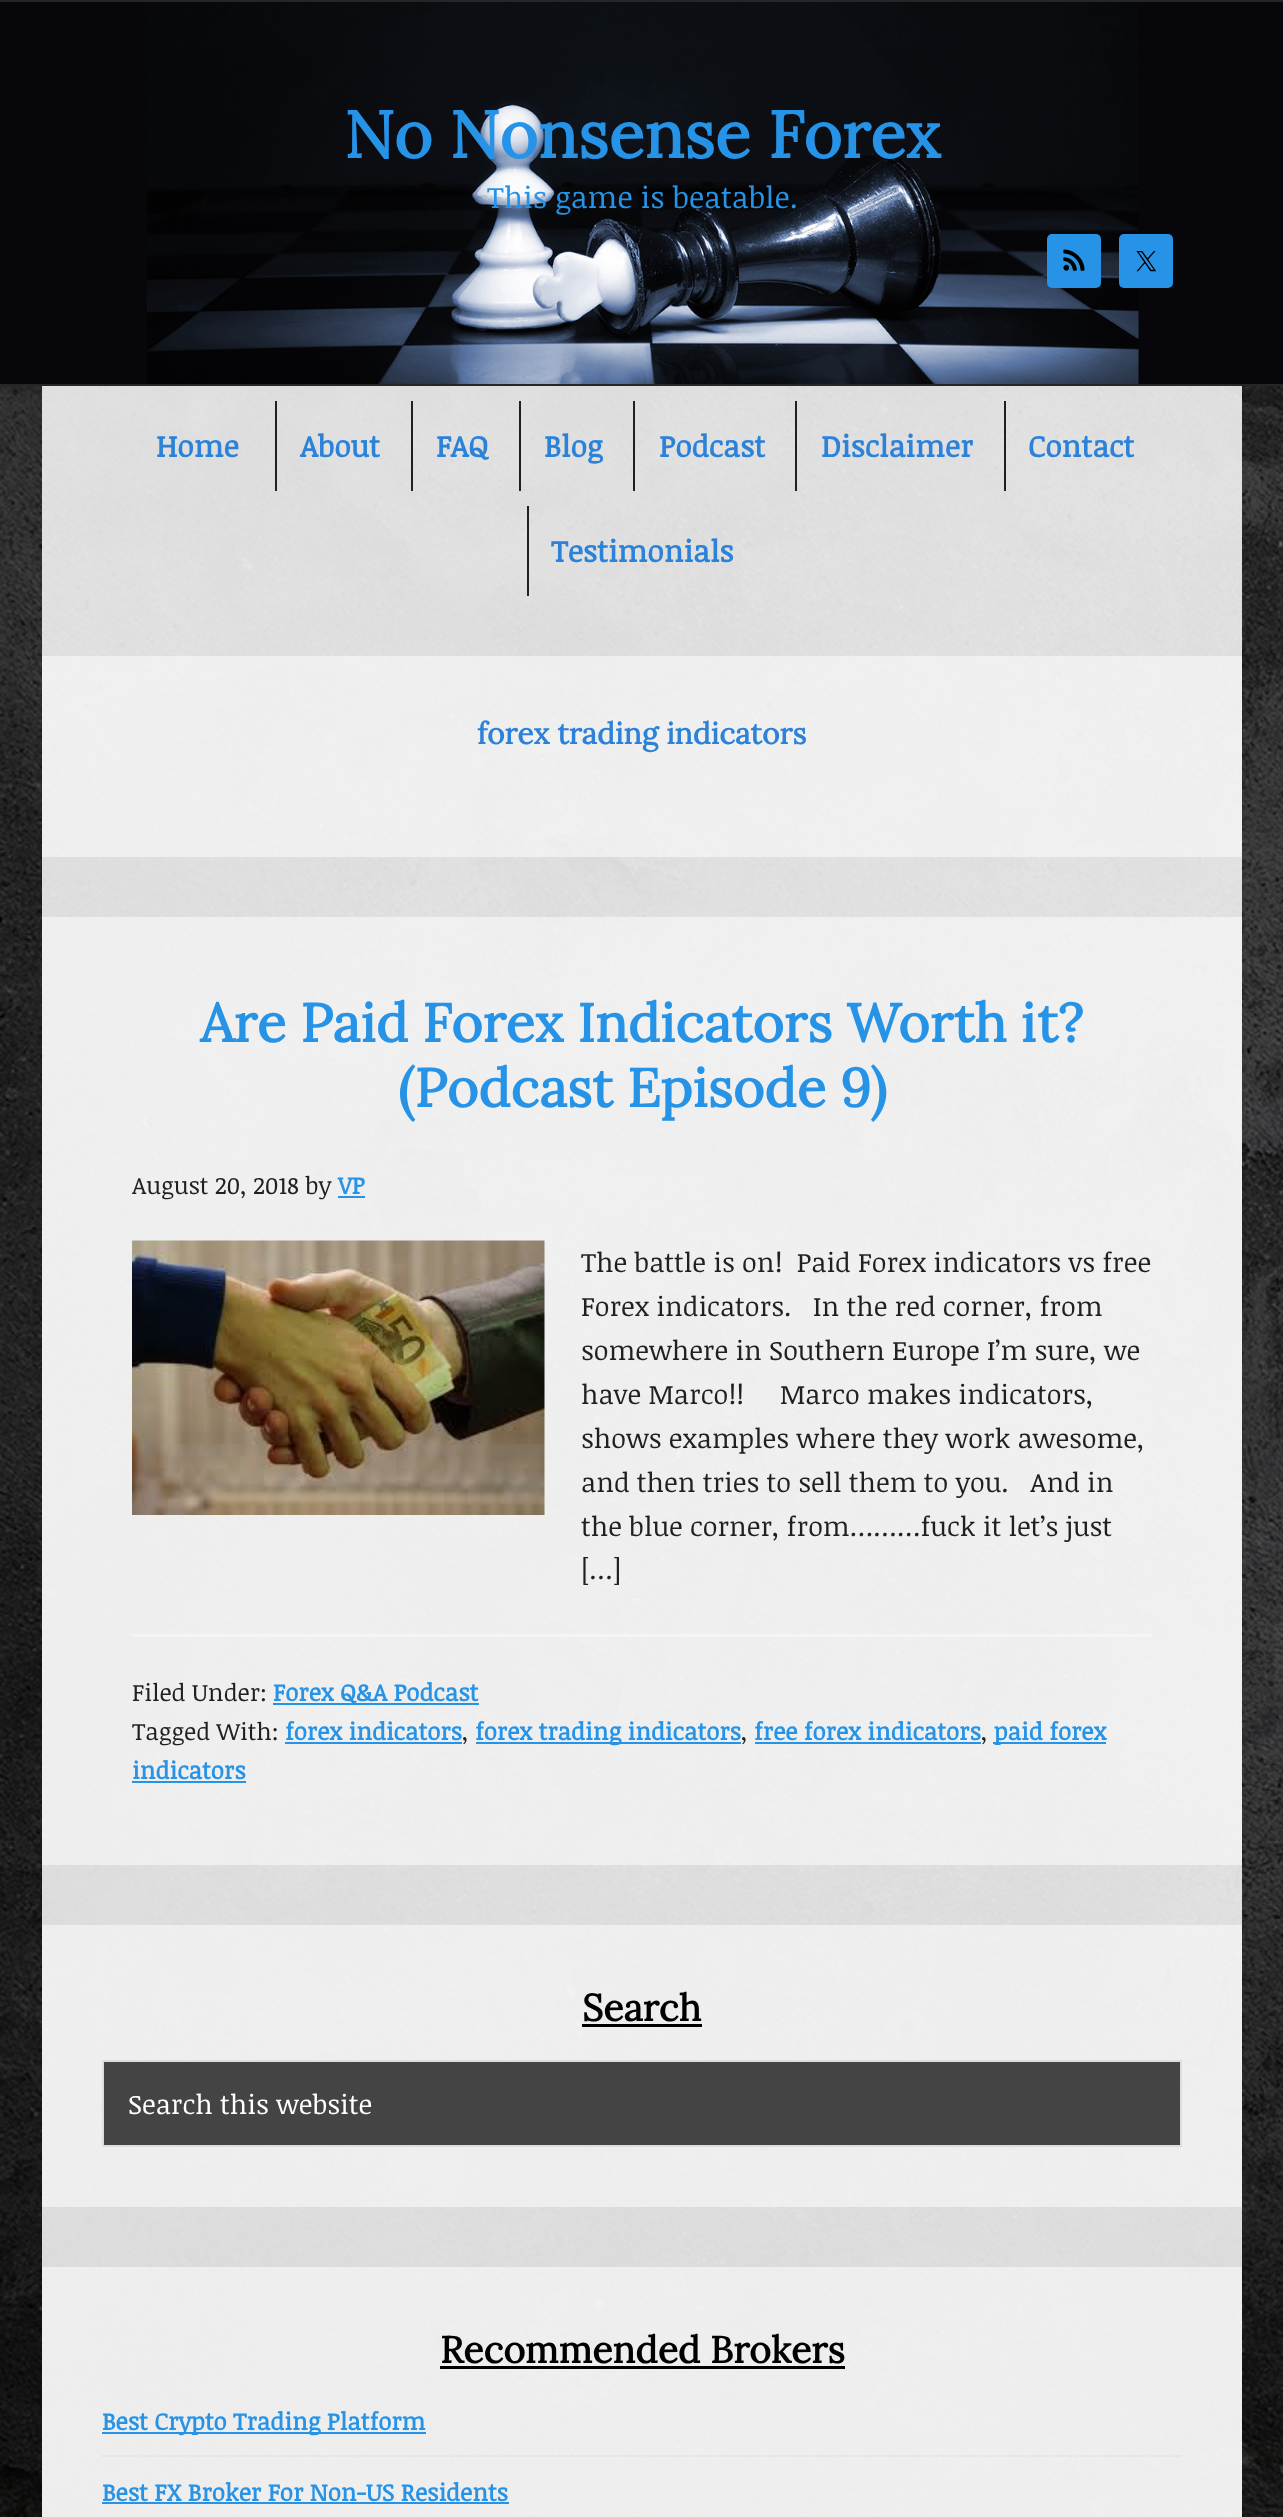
async function draw(canvas) {
  canvas.width = 1283
  canvas.height = 2517
  const ctx = canvas.getContext('2d')
  ctx.miterLimit = 4
  ctx.fontKerning = 'normal'
  async function loadImage(src) {
    const img = new Image()
    img.src = src
    await img.decode()
    return img
  }

  ctx.fillStyle = '#fff'
  ctx.fillRect(0, 0, 1283, 2517)
  ctx.drawImage(await loadImage('image0.png'), 0, 386, 1283, 2131)
  ctx.fillStyle = '#00000026'
  ctx.filter = 'blur(4px)'
  ctx.beginPath()
  ctx.rect(-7, -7, 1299, 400)
  ctx.fill()
  ctx.filter = 'none'
  ctx.fillStyle = '#07070b'
  ctx.fillRect(0, 2, 1283, 382)
  ctx.drawImage(await loadImage('image1.png'), 147, 2, 992, 382)
  ctx.fillStyle = '#272626'
  ctx.fillRect(0, 0, 1283, 2)
  ctx.fillRect(0, 384, 1283, 2)
  ctx.font = 'bold 66px Lora'
  ctx.fillStyle = '#2793e6'
  ctx.fillText('No Nonsense Forex', 344, 158)
  ctx.font = '30px Noticia Text'
  ctx.fillText('This game is beatable.', 487, 208)
  ctx.beginPath()
  ctx.roundRect(1047, 234, 54, 54, 5)
  ctx.fill()
  ctx.drawImage(await loadImage('image2.png'), 1063, 249, 22, 22)
  ctx.beginPath()
  ctx.roundRect(1119, 234, 54, 54, 5)
  ctx.fill()
  ctx.drawImage(await loadImage('image3.png'), 1136, 251, 21, 21)
  ctx.fillStyle = '#ffffffd9'
  ctx.fillRect(42, 386, 1200, 210)
  ctx.font = 'bold 30px Noticia Text'
  ctx.fillStyle = '#2b82d8'
  ctx.fillText('Home', 156, 457)
  ctx.fillStyle = '#211f1f'
  ctx.fillRect(275, 401, 2, 90)
  ctx.fillStyle = '#2b82d8'
  ctx.fillText('About', 300, 457)
  ctx.fillStyle = '#211f1f'
  ctx.fillRect(411, 401, 2, 90)
  ctx.fillStyle = '#2b82d8'
  ctx.fillText('FAQ', 436, 457)
  ctx.fillStyle = '#211f1f'
  ctx.fillRect(519, 401, 2, 90)
  ctx.fillStyle = '#2b82d8'
  ctx.fillText('Blog', 544, 457)
  ctx.fillStyle = '#211f1f'
  ctx.fillRect(633, 401, 2, 90)
  ctx.fillStyle = '#2b82d8'
  ctx.fillText('Podcast', 659, 457)
  ctx.fillStyle = '#211f1f'
  ctx.fillRect(795, 401, 2, 90)
  ctx.fillStyle = '#2b82d8'
  ctx.fillText('Disclaimer', 821, 457)
  ctx.fillStyle = '#211f1f'
  ctx.fillRect(1004, 401, 2, 90)
  ctx.fillStyle = '#2b82d8'
  ctx.fillText('Contact', 1028, 457)
  ctx.fillStyle = '#211f1f'
  ctx.fillRect(527, 506, 2, 90)
  ctx.fillStyle = '#2b82d8'
  ctx.fillText('Testimonials', 551, 562)
  ctx.fillStyle = '#ffffffd9'
  ctx.fillRect(42, 596, 1200, 1921)
  ctx.fillStyle = '#ffffff80'
  ctx.fillRect(42, 656, 1200, 201)
  ctx.font = 'bold 30px Lora'
  ctx.fillStyle = '#2b82d8'
  ctx.fillText('forex trading indicators', 477, 744)
  ctx.fillStyle = '#ffffff80'
  ctx.fillRect(42, 917, 1200, 948)
  ctx.font = 'bold 54px Lora'
  ctx.fillStyle = '#2793e6'
  ctx.fillText('Are Paid Forex Indicators Worth it?', 200, 1042)
  ctx.fillText('(Podcast Episode 9)', 398, 1107)
  ctx.font = '24px Noticia Text'
  ctx.fillStyle = '#211f1f'
  ctx.fillText('August 20, 2018 by', 132, 1194)
  ctx.font = 'bold 24px Noticia Text'
  ctx.fillStyle = '#2793e6'
  ctx.fillText('VP', 338, 1194)
  ctx.fillRect(338, 1196, 27, 2)
  ctx.drawImage(await loadImage('image4.png'), 132, 1240, 413, 275)
  ctx.font = '27px Noticia Text'
  ctx.fillStyle = '#211f1f'
  ctx.fillText('The battle is on!  Paid Forex indicators vs free', 581, 1272)
  ctx.fillText('Forex indicators.   In the red corner, from', 581, 1316)
  ctx.fillText('somewhere in Southern Europe I’m sure, we', 581, 1360)
  ctx.fillText('have Marco!!     Marco makes indicators,', 581, 1404)
  ctx.fillText('shows examples where they work awesome,', 581, 1448)
  ctx.fillText('and then tries to sell them to you.   And in', 581, 1492)
  ctx.fillText('the blue corner, from………fuck it let’s just', 581, 1536)
  ctx.fillText('[…]', 581, 1579)
  ctx.fillStyle = '#f5f5f5'
  ctx.fillRect(132, 1634, 1020, 3)
  ctx.font = '24px Noticia Text'
  ctx.fillStyle = '#211f1f'
  ctx.fillText('Filed Under:', 132, 1701)
  ctx.fillStyle = '#2793e6'
  ctx.fillRect(273, 1703, 206, 2)
  ctx.font = 'bold 24px Noticia Text'
  ctx.fillText('Forex Q&A Podcast', 273, 1701)
  ctx.font = '24px Noticia Text'
  ctx.fillStyle = '#211f1f'
  ctx.fillText('Tagged With:', 132, 1740)
  ctx.font = 'bold 24px Noticia Text'
  ctx.fillStyle = '#2793e6'
  ctx.fillText('forex indicators', 285, 1740)
  ctx.fillRect(285, 1742, 177, 2)
  ctx.font = '24px Noticia Text'
  ctx.fillStyle = '#211f1f'
  ctx.fillText(',', 462, 1740)
  ctx.fillStyle = '#2793e6'
  ctx.fillRect(476, 1742, 265, 2)
  ctx.font = 'bold 24px Noticia Text'
  ctx.fillText('forex trading indicators', 475, 1740)
  ctx.font = '24px Noticia Text'
  ctx.fillStyle = '#211f1f'
  ctx.fillText(',', 741, 1740)
  ctx.font = 'bold 24px Noticia Text'
  ctx.fillStyle = '#2793e6'
  ctx.fillText('free forex indicators', 754, 1740)
  ctx.fillRect(755, 1742, 226, 2)
  ctx.font = '24px Noticia Text'
  ctx.fillStyle = '#211f1f'
  ctx.fillText(',', 981, 1740)
  ctx.fillStyle = '#2793e6'
  ctx.fillRect(993, 1742, 113, 2)
  ctx.font = 'bold 24px Noticia Text'
  ctx.fillText('paid forex', 994, 1740)
  ctx.fillText('indicators', 132, 1779)
  ctx.fillRect(132, 1781, 114, 2)
  ctx.fillStyle = '#ffffff80'
  ctx.fillRect(42, 1925, 1200, 282)
  ctx.font = 'bold 37.5px Lora'
  ctx.fillStyle = '#000'
  ctx.fillText('Search', 582, 2021)
  ctx.fillRect(582, 2024, 120, 3)
  ctx.fillStyle = '#444'
  ctx.beginPath()
  ctx.rect(103, 2061, 1078, 85)
  ctx.fill()
  ctx.strokeStyle = '#ddd'
  ctx.lineWidth = 2
  ctx.stroke()
  ctx.font = '27px Noticia Text'
  ctx.fillStyle = '#fff'
  ctx.fillText('Search this website', 128, 2114)
  ctx.fillStyle = '#ffffff80'
  ctx.fillRect(42, 2267, 1200, 250)
  ctx.font = 'bold 37.5px Lora'
  ctx.fillStyle = '#000'
  ctx.fillText('Recommended Brokers', 440, 2363)
  ctx.fillRect(440, 2366, 405, 3)
  ctx.beginPath()
  ctx.moveTo(102, 2456)
  ctx.lineTo(1182, 2456)
  ctx.lineWidth = 1.5
  ctx.setLineDash([1.5, 1.5])
  ctx.stroke()
  ctx.fillStyle = '#2793e6'
  ctx.fillRect(102, 2432, 324, 2)
  ctx.font = 'bold 24px Noticia Text'
  ctx.fillText('Best Crypto Trading Platform', 102, 2430)
  ctx.fillText('Best FX Broker For Non-US Residents', 102, 2501)
  ctx.fillRect(102, 2502, 407, 2)
}

draw(document.querySelector('canvas'))
